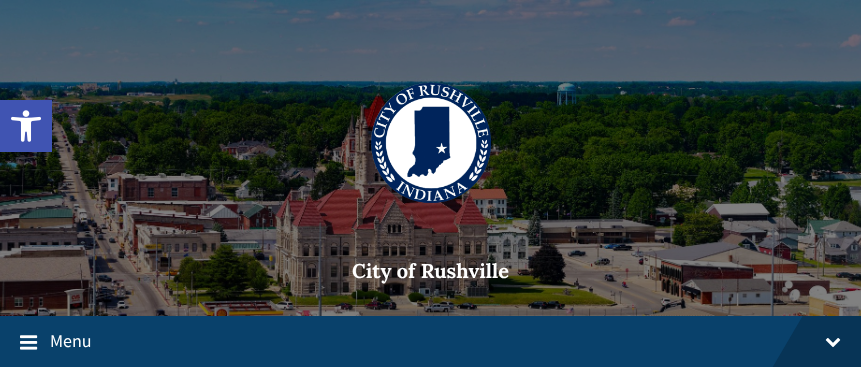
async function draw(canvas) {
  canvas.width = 861
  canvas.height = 380
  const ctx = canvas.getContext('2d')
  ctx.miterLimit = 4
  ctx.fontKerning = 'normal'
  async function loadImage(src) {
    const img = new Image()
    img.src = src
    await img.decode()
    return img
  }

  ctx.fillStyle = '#fff'
  ctx.fillRect(0, 0, 861, 380)
  ctx.drawImage(await loadImage('image1.png'), 0, 0, 861, 316)
  ctx.fillStyle = '#0000001a'
  ctx.filter = 'blur(5px)'
  ctx.beginPath()
  ctx.rect(0, 100, 52, 52)
  ctx.fill()
  ctx.filter = 'none'
  ctx.fillStyle = '#4054b2'
  ctx.fillRect(0, 100, 52, 52)
  ctx.drawImage(await loadImage('image0.png'), 11, 110, 30, 32)
  ctx.drawImage(await loadImage('image2.png'), 371, 82, 120, 121)
  ctx.font = 'bold 20px Lora'
  ctx.fillStyle = '#fff'
  ctx.fillText('City of Rushville', 352, 278)
  ctx.fillStyle = '#09416b'
  ctx.fillRect(0, 316, 803, 51)
  ctx.drawImage(await loadImage('image3.png'), 20, 335, 18, 15)
  ctx.font = '18px Source Sans Pro'
  ctx.fillStyle = '#fff'
  ctx.fillText('Menu', 50, 347)
  ctx.save()
  ctx.beginPath()
  ctx.rect(0, 316, 861, 51)
  ctx.clip()
  ctx.fillStyle = '#073456'
  ctx.beginPath()
  ctx.moveTo(822, 283)
  ctx.lineTo(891, 323)
  ctx.lineTo(840, 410)
  ctx.lineTo(771, 370)
  ctx.closePath()
  ctx.fill()
  ctx.restore()
  ctx.drawImage(await loadImage('image4.png'), 825, 338, 16, 10)
}

draw(document.querySelector('canvas'))
